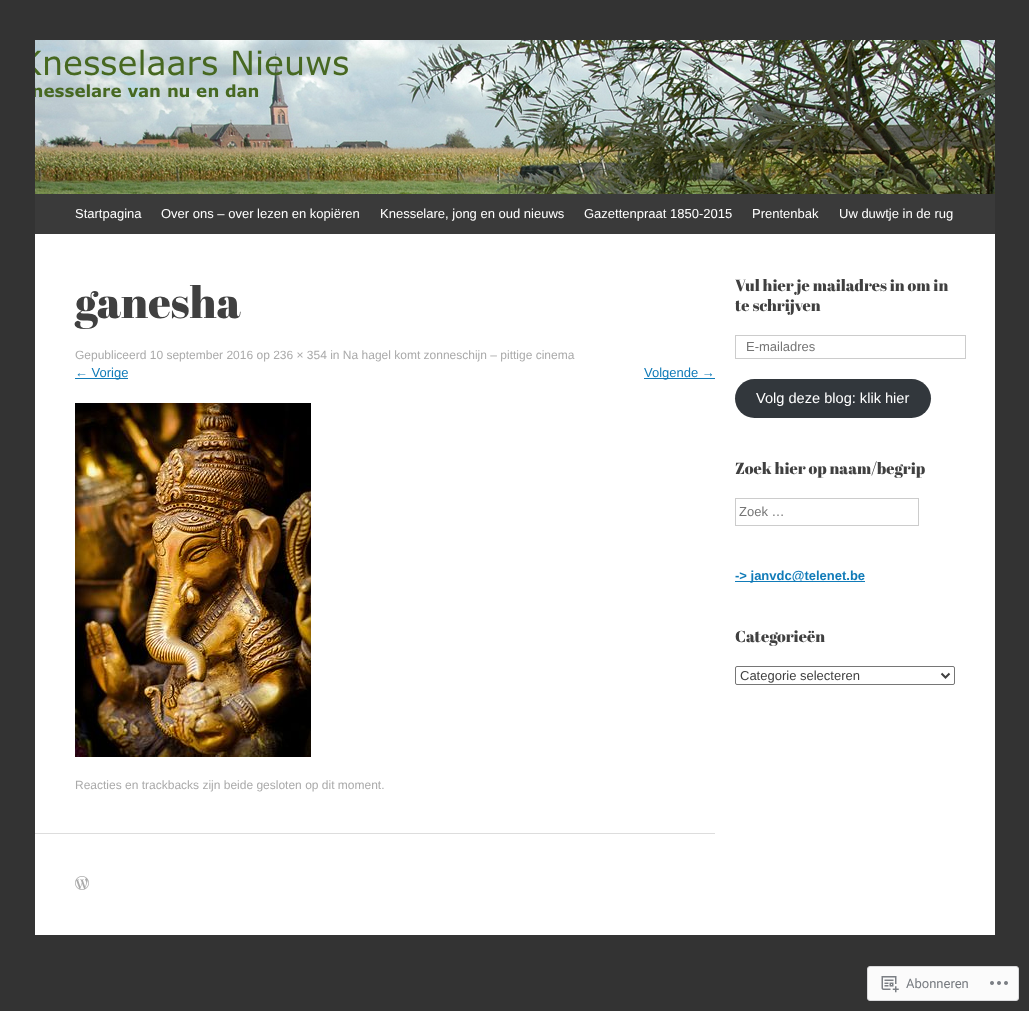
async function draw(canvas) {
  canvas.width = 1029
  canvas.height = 1011
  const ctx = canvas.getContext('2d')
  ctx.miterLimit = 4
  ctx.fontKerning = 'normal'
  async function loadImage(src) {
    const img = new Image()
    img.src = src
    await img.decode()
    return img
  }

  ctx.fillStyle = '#333'
  ctx.fillRect(0, 0, 1029, 1011)
  ctx.fillStyle = '#fff'
  ctx.fillRect(35, 234, 960, 701)
  ctx.drawImage(await loadImage('image0.png'), 35, 40, 960, 154)
  ctx.fillStyle = '#3a3a3a'
  ctx.fillRect(35, 194, 960, 40)
  ctx.font = '13px Liberation Sans'
  ctx.fillStyle = '#fff'
  ctx.fillText('Startpagina', 75, 218)
  ctx.fillText('Over ons – over lezen en kopiëren', 161, 218)
  ctx.fillText('Knesselare, jong en oud nieuws', 380, 218)
  ctx.fillText('Gazettenpraat 1850-2015', 584, 218)
  ctx.fillText('Prentenbak', 752, 218)
  ctx.fillText('Uw duwtje in de rug', 839, 218)
  ctx.fillStyle = '#ddd'
  ctx.fillRect(35, 833, 680, 1)
  ctx.font = '44px Abril Fatface'
  ctx.fillStyle = '#404040'
  ctx.fillText('ganesha', 75, 318)
  ctx.font = '12px Liberation Sans'
  ctx.fillStyle = '#aaa'
  ctx.fillText('Gepubliceerd 10 september 2016 op 236 × 354 in Na hagel komt zonneschijn – pittige cinema', 75, 359)
  ctx.fillStyle = '#117bb8'
  ctx.fillRect(75, 378, 53, 1)
  ctx.font = '13px Liberation Sans'
  ctx.fillText('← Vorige', 75, 377)
  ctx.fillRect(644, 378, 71, 1)
  ctx.fillText('Volgende →', 644, 377)
  ctx.drawImage(await loadImage('image1.png'), 75, 403, 236, 354)
  ctx.font = '12px Liberation Sans'
  ctx.fillStyle = '#aaa'
  ctx.fillText('Reacties en trackbacks zijn beide gesloten op dit moment.', 75, 789)
  ctx.font = '16px Abril Fatface'
  ctx.fillStyle = '#404040'
  ctx.fillText('Vul hier je mailadres in om in', 735, 291)
  ctx.fillText('te schrijven', 735, 311)
  ctx.strokeStyle = '#ccc'
  ctx.strokeRect(735.5, 335.5, 230, 23)
  ctx.font = '13px Liberation Sans'
  ctx.fillStyle = '#757575'
  ctx.fillText('E-mailadres', 746, 351)
  ctx.fillStyle = '#32373c'
  ctx.beginPath()
  ctx.roundRect(735, 379, 196, 39, 19.5)
  ctx.fill()
  ctx.font = '14.6px Liberation Sans'
  ctx.fillStyle = '#fff'
  ctx.fillText('Volg deze blog: klik hier', 756, 403)
  ctx.font = '16px Abril Fatface'
  ctx.fillStyle = '#404040'
  ctx.fillText('Zoek hier op naam/begrip', 735, 474)
  ctx.strokeRect(735.5, 498.5, 183, 27)
  ctx.font = '13px Liberation Sans'
  ctx.fillStyle = '#757575'
  ctx.fillText('Zoek …', 739, 516)
  ctx.fillStyle = '#117bb8'
  ctx.fillRect(735, 581, 130, 1)
  ctx.font = 'bold 13px Liberation Sans'
  ctx.fillText('-> janvdc@telenet.be', 735, 580)
  ctx.font = '16px Abril Fatface'
  ctx.fillStyle = '#404040'
  ctx.fillText('Categorieën', 735, 642)
  ctx.beginPath()
  ctx.roundRect(735.5, 666.5, 219, 18, 1.5)
  ctx.strokeStyle = '#767676'
  ctx.stroke()
  ctx.beginPath()
  ctx.moveTo(941.5, 673.5)
  ctx.lineTo(945.5, 677.5)
  ctx.lineTo(949.5, 673.5)
  ctx.strokeStyle = '#404040'
  ctx.lineWidth = 2
  ctx.stroke()
  ctx.font = '13px Liberation Sans'
  ctx.fillText('Categorie selecteren', 740, 680)
  ctx.drawImage(await loadImage('image2.png'), 75, 876, 14, 14)
  ctx.fillStyle = '#fbfbfb'
  ctx.beginPath()
  ctx.roundRect(867.5, 966.5, 151, 34, 2.5)
  ctx.fill()
  ctx.strokeStyle = '#d9d9db'
  ctx.lineWidth = 1
  ctx.stroke()
  ctx.drawImage(await loadImage('image3.png'), 881, 976, 18, 17)
  ctx.font = '13px Roboto'
  ctx.fillStyle = '#777b80'
  ctx.fillText('Abonneren', 906, 988)
  ctx.drawImage(await loadImage('image4.png'), 990, 981, 18, 4)
}

draw(document.querySelector('canvas'))
